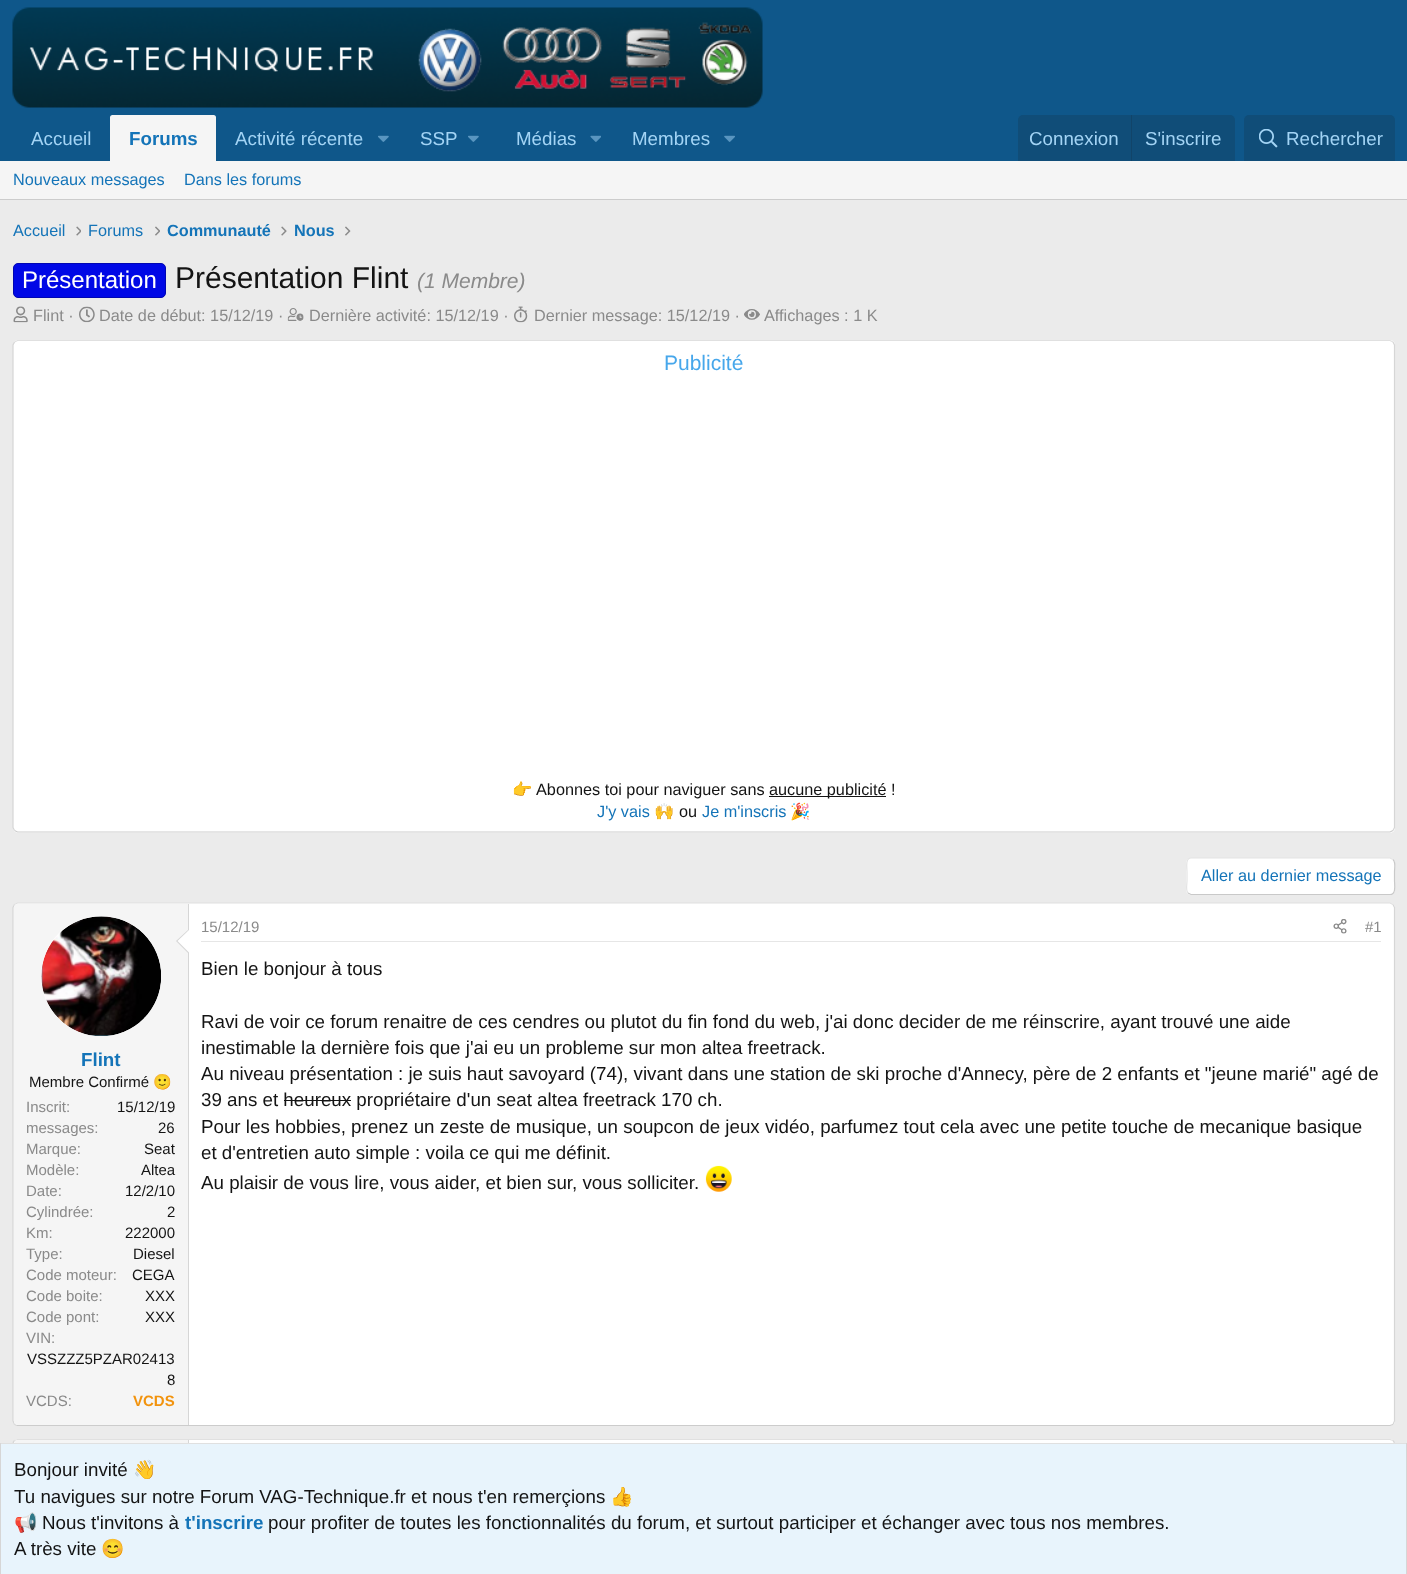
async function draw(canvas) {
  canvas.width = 1407
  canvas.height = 1574
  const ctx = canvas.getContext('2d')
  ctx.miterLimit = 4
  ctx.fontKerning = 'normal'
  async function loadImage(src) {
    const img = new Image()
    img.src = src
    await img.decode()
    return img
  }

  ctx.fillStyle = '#ebebeb'
  ctx.fillRect(0, 0, 1407, 1574)
  ctx.fillStyle = '#0f578a'
  ctx.fillRect(0, 0, 1407, 161)
  ctx.drawImage(await loadImage('image0.png'), 12, 7, 751, 101)
  ctx.font = '18.75px Liberation Sans'
  ctx.fillStyle = '#a3d4f5'
  ctx.fillText('Accueil', 31, 145)
  ctx.fillStyle = '#f5f5f5'
  ctx.beginPath()
  ctx.roundRect(110, 115, 106, 46, [2.5, 2.5, 0, 0])
  ctx.fill()
  ctx.font = 'bold 18.75px Liberation Sans'
  ctx.fillStyle = '#1474b8'
  ctx.fillText('Forums', 129, 145)
  ctx.font = '18.75px Liberation Sans'
  ctx.fillStyle = '#a3d4f5'
  ctx.fillText('Activité récente', 235, 145)
  ctx.drawImage(await loadImage('image1.png'), 378, 135, 11, 7)
  ctx.fillText('SSP', 420, 145)
  ctx.drawImage(await loadImage('image1.png'), 468, 135, 11, 7)
  ctx.fillText('Médias', 516, 145)
  ctx.drawImage(await loadImage('image2.png'), 590, 135, 11, 7)
  ctx.fillText('Membres', 632, 145)
  ctx.drawImage(await loadImage('image3.png'), 724, 135, 11, 7)
  ctx.fillStyle = '#104d78'
  ctx.beginPath()
  ctx.roundRect(1018, 115, 217, 46, [5, 5, 0, 0])
  ctx.fill()
  ctx.fillStyle = '#a3d4f5'
  ctx.fillText('Connexion', 1029, 145)
  ctx.fillStyle = '#114469'
  ctx.fillRect(1131, 115, 1, 46)
  ctx.fillStyle = '#a3d4f5'
  ctx.fillText('S\'inscrire', 1145, 145)
  ctx.fillStyle = '#104d78'
  ctx.beginPath()
  ctx.roundRect(1244, 115, 151, 46, [5, 5, 0, 0])
  ctx.fill()
  ctx.drawImage(await loadImage('image4.png'), 1259, 129, 19, 19)
  ctx.fillStyle = '#a3d4f5'
  ctx.fillText('Rechercher', 1286, 145)
  ctx.fillStyle = '#f5f5f5'
  ctx.fillRect(0, 161, 1407, 38)
  ctx.fillStyle = '#ccc'
  ctx.fillRect(0, 199, 1407, 1)
  ctx.font = '16.25px Liberation Sans'
  ctx.fillStyle = '#1474b8'
  ctx.fillText('Nouveaux messages', 13, 185)
  ctx.fillText('Dans les forums', 184, 185)
  ctx.fillText('Accueil', 13, 236)
  ctx.drawImage(await loadImage('image5.png'), 76, 226, 5, 10)
  ctx.fillText('Forums', 88, 236)
  ctx.drawImage(await loadImage('image6.png'), 155, 226, 5, 10)
  ctx.font = 'bold 16.25px Liberation Sans'
  ctx.fillText('Communauté', 167, 236)
  ctx.drawImage(await loadImage('image7.png'), 281, 226, 6, 10)
  ctx.fillText('Nous', 294, 236)
  ctx.drawImage(await loadImage('image8.png'), 345, 226, 6, 10)
  ctx.fillStyle = '#0008e6'
  ctx.beginPath()
  ctx.roundRect(13.5, 263.5, 152, 34, 4.5)
  ctx.fill()
  ctx.strokeStyle = '#0006b3'
  ctx.stroke()
  ctx.font = '24px Liberation Sans'
  ctx.fillStyle = '#fff'
  ctx.fillText('Présentation', 22, 288)
  ctx.font = '30px Liberation Sans'
  ctx.fillStyle = '#141414'
  ctx.fillText('Présentation Flint', 175, 288)
  ctx.font = 'italic 21px Liberation Sans'
  ctx.fillStyle = '#8a8a8a'
  ctx.fillText('(1 Membre)', 417, 288)
  ctx.drawImage(await loadImage('image9.png'), 13, 306, 15, 17)
  ctx.font = '16.25px Liberation Sans'
  ctx.fillText('Flint ·', 33, 321)
  ctx.drawImage(await loadImage('image10.png'), 79, 306, 16, 17)
  ctx.fillText('Date de début: 15/12/19 ·', 99, 321)
  ctx.drawImage(await loadImage('image11.png'), 287, 308, 17, 13)
  ctx.fillText('Dernière activité: 15/12/19 ·', 309, 321)
  ctx.drawImage(await loadImage('image12.png'), 514, 306, 14, 17)
  ctx.fillText('Dernier message: 15/12/19 ·', 534, 321)
  ctx.drawImage(await loadImage('image13.png'), 744, 309, 16, 11)
  ctx.fillText('Affichages : 1 K', 764, 321)
  ctx.fillStyle = '#fff'
  ctx.beginPath()
  ctx.roundRect(13, 340, 1382, 493, 5)
  ctx.fill()
  ctx.beginPath()
  ctx.moveTo(14.5, 342)
  ctx.lineTo(17.5, 340.5)
  ctx.lineTo(1390, 340.5)
  ctx.lineTo(1393, 342)
  ctx.strokeStyle = '#e0e0e0'
  ctx.lineWidth = 1.2
  ctx.stroke()
  ctx.beginPath()
  ctx.moveTo(1393, 342)
  ctx.lineTo(1394.5, 345)
  ctx.lineTo(1394.5, 827.5)
  ctx.lineTo(1393, 830.5)
  ctx.strokeStyle = '#d6d6d6'
  ctx.stroke()
  ctx.beginPath()
  ctx.moveTo(1393, 830.5)
  ctx.lineTo(1390, 832)
  ctx.lineTo(17.5, 832)
  ctx.lineTo(14.5, 830.5)
  ctx.strokeStyle = '#ccc'
  ctx.stroke()
  ctx.beginPath()
  ctx.moveTo(14.5, 830.5)
  ctx.lineTo(13, 827.5)
  ctx.lineTo(13, 345)
  ctx.lineTo(14.5, 342)
  ctx.strokeStyle = '#d6d6d6'
  ctx.stroke()
  ctx.font = '21px Liberation Sans'
  ctx.fillStyle = '#47a7eb'
  ctx.fillText('Publicité', 664, 370)
  ctx.font = '16.25px Noto Color Emoji'
  ctx.fillStyle = '#141414'
  ctx.fillText('👉', 512, 795)
  ctx.font = '16.25px Liberation Sans'
  ctx.fillText('Abonnes toi pour naviguer sans', 536, 795)
  ctx.fillRect(769, 796, 117, 1)
  ctx.fillText('aucune publicité !', 769, 795)
  ctx.fillStyle = '#1474b8'
  ctx.fillText('J\'y vais', 597, 817)
  ctx.font = '16.25px Noto Color Emoji'
  ctx.fillText('🙌', 654, 817)
  ctx.font = '16.25px Liberation Sans'
  ctx.fillStyle = '#141414'
  ctx.fillText('ou', 679, 817)
  ctx.fillStyle = '#1474b8'
  ctx.fillText('Je m\'inscris', 702, 817)
  ctx.font = '16.25px Noto Color Emoji'
  ctx.fillText('🎉', 790, 817)
  ctx.fillStyle = '#fff'
  ctx.beginPath()
  ctx.roundRect(1186, 858, 209, 37, 5)
  ctx.fill()
  ctx.beginPath()
  ctx.moveTo(1393, 859.5)
  ctx.bezierCurveTo(1396, 862, 1394.5, 868.5, 1394.5, 871.5)
  ctx.lineTo(1394.5, 881)
  ctx.bezierCurveTo(1394.5, 884, 1396.5, 894.5, 1390, 894.5)
  ctx.lineTo(1191, 894.5)
  ctx.lineTo(1188, 893)
  ctx.strokeStyle = '#c9c9c9'
  ctx.stroke()
  ctx.beginPath()
  ctx.moveTo(1188, 893)
  ctx.bezierCurveTo(1185.5, 890.5, 1187, 884, 1187, 881)
  ctx.lineTo(1187, 871.5)
  ctx.bezierCurveTo(1187, 868.5, 1185, 858, 1191, 858)
  ctx.lineTo(1390, 858)
  ctx.lineTo(1393, 859.5)
  ctx.strokeStyle = '#e3e3e3'
  ctx.stroke()
  ctx.font = '16.25px Liberation Sans'
  ctx.fillStyle = '#1474b8'
  ctx.fillText('Aller au dernier message', 1201, 881)
  ctx.fillStyle = '#fff'
  ctx.beginPath()
  ctx.roundRect(13, 903, 1382, 523, 5)
  ctx.fill()
  ctx.beginPath()
  ctx.moveTo(14.5, 904.5)
  ctx.lineTo(17.5, 903)
  ctx.lineTo(1390, 903)
  ctx.lineTo(1393, 904.5)
  ctx.strokeStyle = '#e0e0e0'
  ctx.stroke()
  ctx.beginPath()
  ctx.moveTo(1393, 904.5)
  ctx.lineTo(1394.5, 907.5)
  ctx.lineTo(1394.5, 1421)
  ctx.lineTo(1393, 1424.5)
  ctx.strokeStyle = '#d6d6d6'
  ctx.stroke()
  ctx.beginPath()
  ctx.moveTo(1393, 1424.5)
  ctx.lineTo(1390, 1425.5)
  ctx.lineTo(17.5, 1425.5)
  ctx.lineTo(14.5, 1424.5)
  ctx.strokeStyle = '#ccc'
  ctx.stroke()
  ctx.beginPath()
  ctx.moveTo(14.5, 1424.5)
  ctx.lineTo(13, 1421)
  ctx.lineTo(13, 907.5)
  ctx.lineTo(14.5, 904.5)
  ctx.strokeStyle = '#d6d6d6'
  ctx.stroke()
  ctx.fillStyle = '#f5f5f5'
  ctx.beginPath()
  ctx.roundRect(14, 904, 175, 521, [4, 0, 0, 4])
  ctx.fill()
  ctx.fillStyle = '#d6d6d6'
  ctx.fillRect(188, 904, 1, 521)
  ctx.fillStyle = '#fff'
  ctx.beginPath()
  ctx.arc(101, 976, 60, 0, 2 * Math.PI)
  ctx.fill()
  ctx.drawImage(await loadImage('image14.png'), 41, 916, 120, 120)
  ctx.fillStyle = '#d6d6d6'
  ctx.beginPath()
  ctx.moveTo(189, 929)
  ctx.lineTo(189, 954)
  ctx.lineTo(176, 941)
  ctx.closePath()
  ctx.fill()
  ctx.fillStyle = '#fff'
  ctx.beginPath()
  ctx.moveTo(189, 930)
  ctx.lineTo(189, 952.5)
  ctx.lineTo(177.5, 941)
  ctx.closePath()
  ctx.fill()
  ctx.font = 'bold 18.75px Liberation Sans'
  ctx.fillStyle = '#1474b8'
  ctx.fillText('Flint', 81, 1066)
  ctx.font = '15px Liberation Sans'
  ctx.fillStyle = '#141414'
  ctx.fillText('Membre Confirmé', 29, 1087)
  ctx.font = '15px Noto Color Emoji'
  ctx.fillText('🙂', 153, 1087)
  ctx.font = '15px Liberation Sans'
  ctx.fillStyle = '#8a8a8a'
  ctx.fillText('Inscrit:', 26, 1112)
  ctx.fillStyle = '#141414'
  ctx.fillText('15/12/19', 117, 1112)
  ctx.fillStyle = '#8a8a8a'
  ctx.fillText('messages:', 26, 1133)
  ctx.fillStyle = '#141414'
  ctx.fillText('26', 158, 1133)
  ctx.fillStyle = '#8a8a8a'
  ctx.fillText('Marque:', 26, 1154)
  ctx.fillStyle = '#141414'
  ctx.fillText('Seat', 144, 1154)
  ctx.fillStyle = '#8a8a8a'
  ctx.fillText('Modèle:', 26, 1175)
  ctx.fillStyle = '#141414'
  ctx.fillText('Altea', 141, 1175)
  ctx.fillStyle = '#8a8a8a'
  ctx.fillText('Date:', 26, 1196)
  ctx.fillStyle = '#141414'
  ctx.fillText('12/2/10', 125, 1196)
  ctx.fillStyle = '#8a8a8a'
  ctx.fillText('Cylindrée:', 26, 1217)
  ctx.fillStyle = '#141414'
  ctx.fillText('2', 167, 1217)
  ctx.fillStyle = '#8a8a8a'
  ctx.fillText('Km:', 26, 1238)
  ctx.fillStyle = '#141414'
  ctx.fillText('222000', 125, 1238)
  ctx.fillStyle = '#8a8a8a'
  ctx.fillText('Type:', 26, 1259)
  ctx.fillStyle = '#141414'
  ctx.fillText('Diesel', 133, 1259)
  ctx.fillStyle = '#8a8a8a'
  ctx.fillText('Code moteur:', 26, 1280)
  ctx.fillStyle = '#141414'
  ctx.fillText('CEGA', 132, 1280)
  ctx.fillStyle = '#8a8a8a'
  ctx.fillText('Code boite:', 26, 1301)
  ctx.fillStyle = '#141414'
  ctx.fillText('XXX', 145, 1301)
  ctx.fillStyle = '#8a8a8a'
  ctx.fillText('Code pont:', 26, 1322)
  ctx.fillStyle = '#141414'
  ctx.fillText('XXX', 145, 1322)
  ctx.fillStyle = '#8a8a8a'
  ctx.fillText('VIN:', 26, 1343)
  ctx.fillStyle = '#141414'
  ctx.fillText('VSSZZZ5PZAR02413', 27, 1364)
  ctx.fillText('8', 167, 1385)
  ctx.fillStyle = '#8a8a8a'
  ctx.fillText('VCDS:', 26, 1406)
  ctx.font = 'bold 15px Liberation Sans'
  ctx.fillStyle = '#f2930d'
  ctx.fillText('VCDS', 133, 1406)
  ctx.fillStyle = '#e6e6e6'
  ctx.fillRect(201, 941, 1180, 1)
  ctx.font = '15px Liberation Sans'
  ctx.fillStyle = '#8a8a8a'
  ctx.fillText('15/12/19', 201, 932)
  ctx.drawImage(await loadImage('image15.png'), 1333, 919, 14, 15)
  ctx.fillText('#1', 1365, 932)
  ctx.font = '18.75px Liberation Sans'
  ctx.fillStyle = '#141414'
  ctx.fillText('Bien le bonjour à tous', 201, 975)
  ctx.fillText('Ravi de voir ce forum renaitre de ces cendres ou plutot du fin fond du web, j\'ai donc decider de me réinscrire, ayant trouvé une aide', 201, 1028)
  ctx.fillText('inestimable la dernière fois que j\'ai eu un probleme sur mon altea freetrack.', 201, 1054)
  ctx.fillText('Au niveau présentation : je suis haut savoyard (74), vivant dans une station de ski proche d\'Annecy, père de 2 enfants et "jeune marié" agé de', 201, 1080)
  ctx.fillText('39 ans et heureux propriétaire d\'un seat altea freetrack 170 ch.', 201, 1106)
  ctx.fillRect(284, 1100, 67, 1)
  ctx.fillText('Pour les hobbies, prenez un zeste de musique, un soupcon de jeux vidéo, parfumez tout cela avec une petite touche de mecanique basique', 201, 1133)
  ctx.fillText('et d\'entretien auto simple : voila ce qui me définit.', 201, 1159)
  ctx.fillText('Au plaisir de vous lire, vous aider, et bien sur, vous solliciter.', 201, 1189)
  ctx.drawImage(await loadImage('image16.png'), 705, 1165, 27, 27)
  ctx.fillStyle = '#fff'
  ctx.beginPath()
  ctx.roundRect(13, 1439, 1382, 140, 5)
  ctx.fill()
  ctx.beginPath()
  ctx.moveTo(14.5, 1440.5)
  ctx.lineTo(17.5, 1439.5)
  ctx.lineTo(1390, 1439.5)
  ctx.lineTo(1393, 1440.5)
  ctx.strokeStyle = '#e0e0e0'
  ctx.stroke()
  ctx.beginPath()
  ctx.moveTo(1393, 1440.5)
  ctx.bezierCurveTo(1394, 1441.5, 1394.5, 1442.5, 1394.5, 1444)
  ctx.lineTo(1394.5, 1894)
  ctx.bezierCurveTo(1394.5, 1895, 1394, 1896, 1393, 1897)
  ctx.strokeStyle = '#d6d6d6'
  ctx.stroke()
  ctx.beginPath()
  ctx.moveTo(14.5, 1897)
  ctx.bezierCurveTo(13.5, 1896, 13, 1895, 13, 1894)
  ctx.lineTo(13, 1444)
  ctx.bezierCurveTo(13, 1442.5, 13.5, 1441.5, 14.5, 1440.5)
  ctx.stroke()
  ctx.fillStyle = '#f5f5f5'
  ctx.beginPath()
  ctx.moveTo(18, 1440)
  ctx.lineTo(189, 1440)
  ctx.lineTo(189, 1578)
  ctx.lineTo(18, 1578)
  ctx.bezierCurveTo(16, 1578, 14, 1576, 14, 1574)
  ctx.lineTo(14, 1444)
  ctx.bezierCurveTo(14, 1442, 16, 1440, 18, 1440)
  ctx.closePath()
  ctx.fill()
  ctx.fillStyle = '#d6d6d6'
  ctx.fillRect(188, 1440, 1, 3)
  ctx.fillStyle = '#e8f4fc'
  ctx.fillRect(1, 1444, 1405, 130)
  ctx.fillStyle = '#e0e0e0'
  ctx.fillRect(0, 1443, 1407, 1)
  ctx.fillStyle = '#d6d6d6'
  ctx.fillRect(1406, 1443, 1, 131)
  ctx.fillRect(0, 1443, 1, 131)
  ctx.fillStyle = '#141414'
  ctx.fillText('Bonjour invité', 14, 1476)
  ctx.font = '18.75px Noto Color Emoji'
  ctx.fillText('👋', 133, 1476)
  ctx.font = '18.75px Liberation Sans'
  ctx.fillText('Tu navigues sur notre Forum VAG-Technique.fr et nous t\'en remerçions', 14, 1503)
  ctx.font = '18.75px Noto Color Emoji'
  ctx.fillText('👍', 610, 1503)
  ctx.fillText('📢', 14, 1529)
  ctx.font = '18.75px Liberation Sans'
  ctx.fillText('Nous t\'invitons à', 42, 1529)
  ctx.font = 'bold 18.75px Liberation Sans'
  ctx.fillStyle = '#1474b8'
  ctx.fillText('t\'inscrire', 185, 1529)
  ctx.font = '18.75px Liberation Sans'
  ctx.fillStyle = '#141414'
  ctx.fillText('pour profiter de toutes les fonctionnalités du forum, et surtout participer et échanger avec tous nos membres.', 268, 1529)
  ctx.fillText('A très vite', 14, 1555)
  ctx.font = '18.75px Noto Color Emoji'
  ctx.fillText('😊', 101, 1555)
}

draw(document.querySelector('canvas'))
